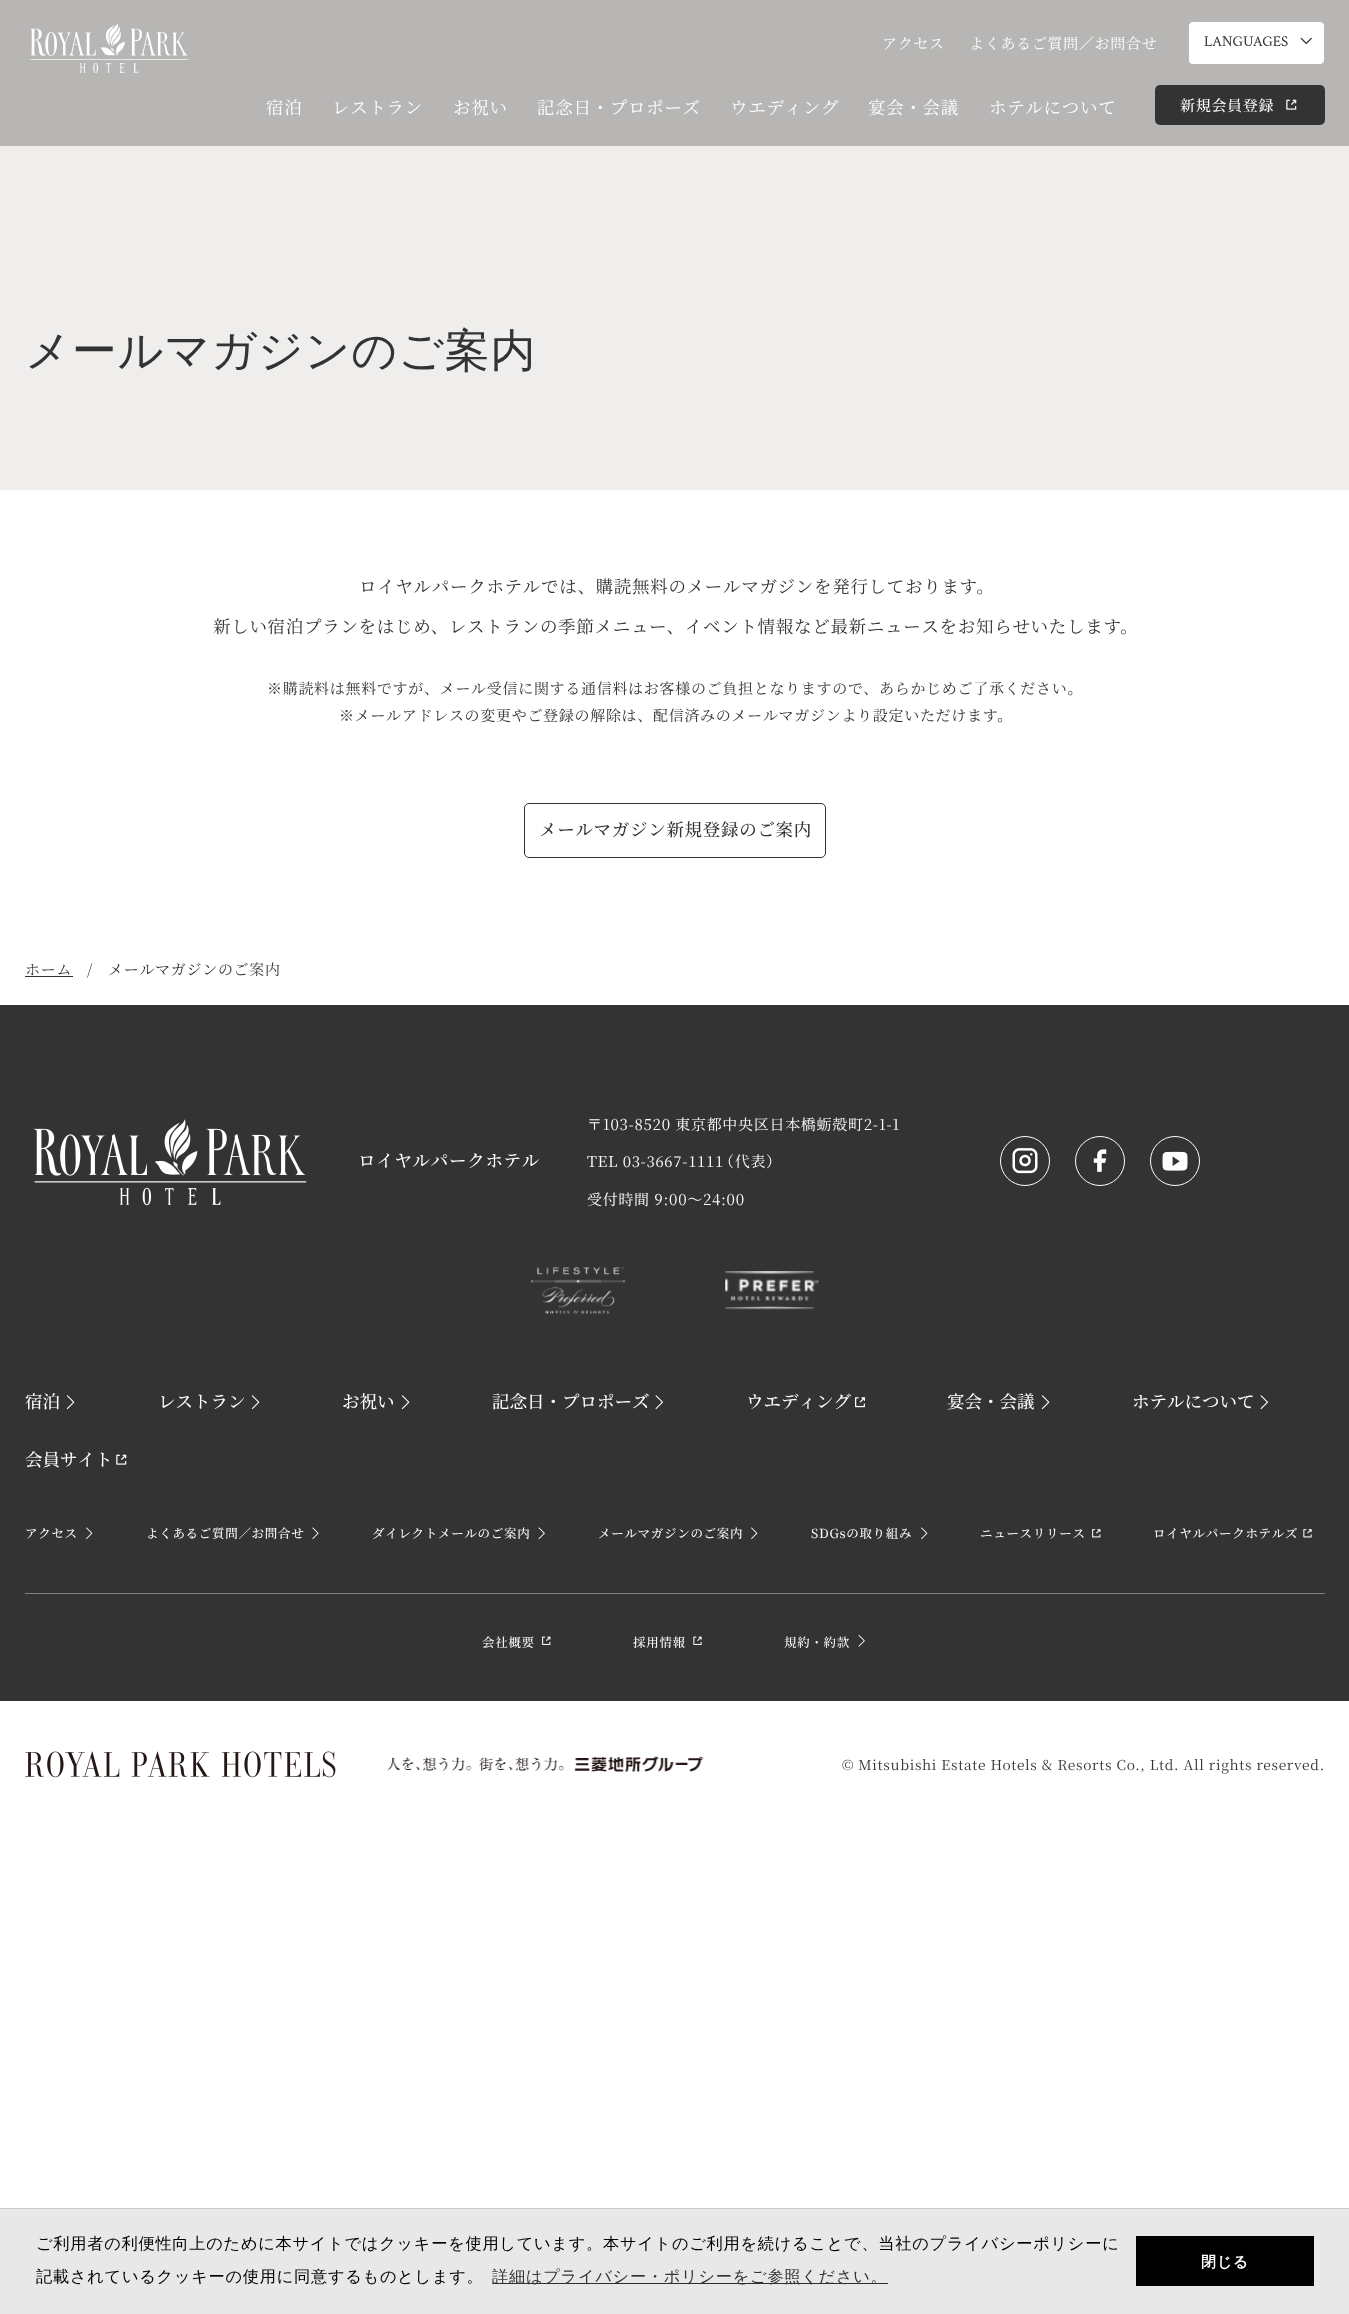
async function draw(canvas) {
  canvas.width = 1349
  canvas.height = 2314
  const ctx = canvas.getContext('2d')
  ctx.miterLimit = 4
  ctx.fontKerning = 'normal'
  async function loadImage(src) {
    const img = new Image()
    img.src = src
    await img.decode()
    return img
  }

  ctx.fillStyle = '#fff'
  ctx.fillRect(0, 0, 1349, 2314)
  ctx.fillStyle = '#b7b6b5'
  ctx.fillRect(0, 0, 1349, 146)
  ctx.drawImage(await loadImage('image0.png'), 30, 23, 159, 50)
  ctx.letterSpacing = '0.7px'
  ctx.font = '15px Noto Serif JP'
  ctx.fillStyle = '#fff'
  ctx.fillText('アクセス', 882, 49)
  ctx.fillText('よくあるご質問／お問合せ', 969, 49)
  ctx.beginPath()
  ctx.roundRect(1188.5, 21.5, 136, 43, 4.5)
  ctx.fill()
  ctx.strokeStyle = '#bab8b6'
  ctx.stroke()
  ctx.letterSpacing = '0px'
  ctx.font = '15px Crimson Text'
  ctx.fillStyle = '#333'
  ctx.fillText('LANGUAGES', 1204, 46)
  ctx.drawImage(await loadImage('image1.png'), 1300, 37, 12, 7)
  ctx.letterSpacing = '0.7px'
  ctx.font = '17.5px Noto Serif JP'
  ctx.fillStyle = '#fff'
  ctx.fillText('宿泊', 266, 114)
  ctx.fillText('レストラン', 332, 114)
  ctx.fillText('お祝い', 453, 114)
  ctx.fillText('記念日・プロポーズ', 537, 114)
  ctx.fillText('ウエディング', 730, 114)
  ctx.fillText('宴会・会議', 868, 114)
  ctx.fillText('ホテルについて', 989, 114)
  ctx.fillStyle = '#333'
  ctx.beginPath()
  ctx.roundRect(1155, 85, 170, 40, 5)
  ctx.fill()
  ctx.font = '500 15px Noto Serif JP'
  ctx.fillStyle = '#fff'
  ctx.fillText('新規会員登録', 1180, 111)
  ctx.drawImage(await loadImage('image2.png'), 1286, 99, 11, 11)
  ctx.fillStyle = '#efeeed'
  ctx.fillRect(0, 146, 1349, 344)
  ctx.font = '500 45px WenQuanYi Zen Hei'
  ctx.fillStyle = '#333'
  ctx.fillText('メールマガジンのご案内', 25, 366)
  ctx.font = '17.5px Noto Serif JP'
  ctx.fillText('ロイヤルパークホテルでは、購読無料のメールマガジンを発行しております。', 359, 593)
  ctx.fillText('新しい宿泊プランをはじめ、レストランの季節メニュー、イベント情報など最新ニュースをお知らせいたします。', 213, 633)
  ctx.font = '15px Noto Serif JP'
  ctx.fillText('※購読料は無料ですが、メール受信に関する通信料はお客様のご負担となりますので、あらかじめご了承ください。', 267, 694)
  ctx.fillText('※メールアドレスの変更やご登録の解除は、配信済みのメールマガジンより設定いただけます。', 339, 721)
  ctx.beginPath()
  ctx.roundRect(524.5, 803.5, 301, 54, 4.5)
  ctx.strokeStyle = '#333'
  ctx.stroke()
  ctx.font = '500 17.5px Noto Serif JP'
  ctx.fillText('メールマガジン新規登録のご案内', 539, 836)
  ctx.font = '15px Noto Serif JP'
  ctx.fillText('ホーム', 25, 975)
  ctx.fillRect(25, 976, 48, 1)
  ctx.fillText('/', 87, 975)
  ctx.fillText('メールマガジンのご案内', 108, 975)
  ctx.fillRect(0, 1005, 1349, 696)
  ctx.drawImage(await loadImage('image3.png'), 33, 1119, 274, 87)
  ctx.font = '500 17.5px Noto Serif JP'
  ctx.fillStyle = '#fff'
  ctx.fillText('ロイヤルパークホテル', 358, 1167)
  ctx.font = '15px Noto Serif JP'
  ctx.fillText('〒103-8520 東京都中央区日本橋蛎殻町2-1-1', 587, 1130)
  ctx.fillText('TEL 03-3667-1111', 587, 1167)
  ctx.fillText('（代表）', 719, 1167)
  ctx.fillText('受付時間 9:00～24:00', 587, 1205)
  ctx.beginPath()
  ctx.arc(1025, 1161, 24.5, 0, 2 * Math.PI)
  ctx.strokeStyle = '#fff'
  ctx.stroke()
  ctx.drawImage(await loadImage('image4.png'), 1012, 1148, 26, 26)
  ctx.beginPath()
  ctx.arc(1100, 1161, 24.5, 0, 2 * Math.PI)
  ctx.stroke()
  ctx.drawImage(await loadImage('image5.png'), 1093, 1149, 14, 23)
  ctx.beginPath()
  ctx.arc(1175, 1161, 24.5, 0, 2 * Math.PI)
  ctx.stroke()
  ctx.drawImage(await loadImage('image6.png'), 1162, 1151, 26, 20)
  ctx.drawImage(await loadImage('image7.png'), 531, 1267, 95, 48)
  ctx.drawImage(await loadImage('image8.png'), 725, 1271, 95, 39)
  ctx.letterSpacing = '0px'
  ctx.font = '500 17.5px Noto Serif JP'
  ctx.fillText('宿泊', 25, 1408)
  ctx.drawImage(await loadImage('image9.png'), 66, 1395, 9, 15)
  ctx.fillText('レストラン', 158, 1408)
  ctx.drawImage(await loadImage('image9.png'), 251, 1395, 9, 15)
  ctx.fillText('お祝い', 342, 1408)
  ctx.drawImage(await loadImage('image9.png'), 401, 1395, 9, 15)
  ctx.fillText('記念日・プロポーズ', 492, 1408)
  ctx.drawImage(await loadImage('image10.png'), 655, 1395, 8, 15)
  ctx.fillText('ウエディング', 746, 1408)
  ctx.drawImage(await loadImage('image11.png'), 855, 1397, 10, 11)
  ctx.fillText('宴会・会議', 947, 1408)
  ctx.drawImage(await loadImage('image9.png'), 1041, 1395, 9, 15)
  ctx.fillText('ホテルについて', 1132, 1408)
  ctx.drawImage(await loadImage('image10.png'), 1260, 1395, 8, 15)
  ctx.fillText('会員サイト', 25, 1466)
  ctx.drawImage(await loadImage('image2.png'), 116, 1454, 11, 11)
  ctx.letterSpacing = '0.7px'
  ctx.font = '500 12.5px Noto Serif JP'
  ctx.fillText('アクセス', 25, 1538)
  ctx.drawImage(await loadImage('image12.png'), 86, 1527, 7, 12)
  ctx.fillText('よくあるご質問／お問合せ', 146, 1538)
  ctx.drawImage(await loadImage('image13.png'), 312, 1527, 7, 12)
  ctx.fillText('ダイレクトメールのご案内', 372, 1538)
  ctx.drawImage(await loadImage('image14.png'), 538, 1527, 7, 12)
  ctx.fillText('メールマガジンのご案内', 598, 1538)
  ctx.drawImage(await loadImage('image12.png'), 751, 1527, 7, 12)
  ctx.fillText('SDGsの取り組み', 811, 1538)
  ctx.drawImage(await loadImage('image12.png'), 921, 1527, 7, 12)
  ctx.fillText('ニュースリリース', 980, 1538)
  ctx.drawImage(await loadImage('image15.png'), 1092, 1529, 9, 9)
  ctx.fillText('ロイヤルパークホテルズ', 1153, 1538)
  ctx.drawImage(await loadImage('image16.png'), 1303, 1529, 9, 9)
  ctx.fillStyle = '#88807a'
  ctx.fillRect(25, 1593, 1300, 1)
  ctx.fillStyle = '#fff'
  ctx.fillText('会社概要', 482, 1647)
  ctx.drawImage(await loadImage('image17.png'), 542, 1636, 9, 9)
  ctx.fillText('採用情報', 633, 1647)
  ctx.drawImage(await loadImage('image18.png'), 693, 1636, 9, 9)
  ctx.fillText('規約・約款', 784, 1647)
  ctx.drawImage(await loadImage('image19.png'), 858, 1635, 7, 12)
  ctx.drawImage(await loadImage('image20.png'), 25, 1751, 311, 27)
  ctx.drawImage(await loadImage('image21.png'), 387, 1756, 317, 16)
  ctx.font = '13.75px Noto Serif JP'
  ctx.fillStyle = '#333'
  ctx.fillText('© Mitsubishi Estate Hotels & Resorts Co., Ltd. All rights reserved.', 842, 1770)
  ctx.fillStyle = '#e8e8e8'
  ctx.fillRect(0, 2209, 1349, 105)
  ctx.fillStyle = '#ccc'
  ctx.fillRect(0, 2208, 1349, 1)
  ctx.font = '500 16.25px WenQuanYi Zen Hei'
  ctx.fillStyle = '#000'
  ctx.fillText('ご利用者の利便性向上のために本サイトではクッキーを使用しています。本サイトのご利用を続けることで、当社のプライバシーポリシーに', 36, 2249)
  ctx.fillText('記載されているクッキーの使用に同意するものとします。', 36, 2282)
  ctx.fillStyle = '#2e2e2e'
  ctx.fillRect(493, 2283, 395, 1)
  ctx.fillStyle = '#333'
  ctx.fillText('詳細はプライバシー・ポリシーをご参照ください。', 492, 2282)
  ctx.fillStyle = '#000'
  ctx.fillRect(1136, 2236, 178, 50)
  ctx.font = 'bold 15px WenQuanYi Zen Hei'
  ctx.fillStyle = '#fff'
  ctx.fillText('閉じる', 1201, 2267)
}

draw(document.querySelector('canvas'))
